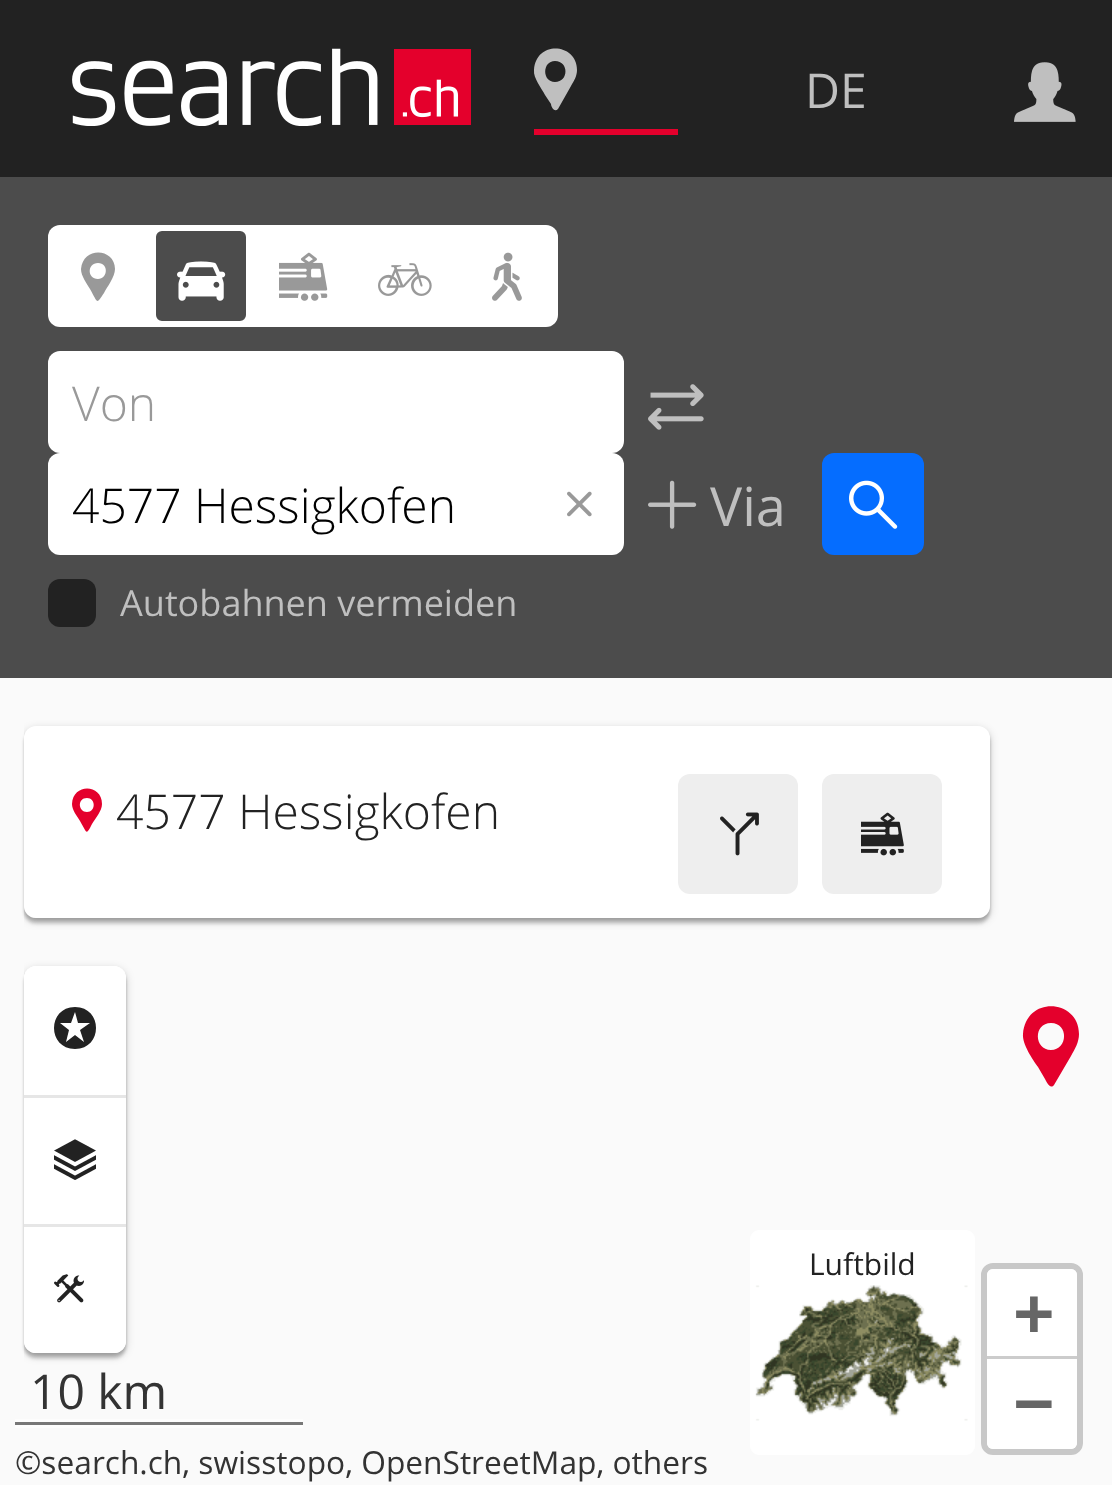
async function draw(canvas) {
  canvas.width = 1112
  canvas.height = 1485
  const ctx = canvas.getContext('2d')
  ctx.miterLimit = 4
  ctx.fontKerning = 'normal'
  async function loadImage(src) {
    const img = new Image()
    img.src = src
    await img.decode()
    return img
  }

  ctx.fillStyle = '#fafafa'
  ctx.fillRect(0, 0, 1112, 1485)
  ctx.fillStyle = '#222'
  ctx.fillRect(0, 0, 1112, 177)
  ctx.drawImage(await loadImage('image0.png'), 72, 48, 399, 78)
  ctx.fillStyle = '#e4002c'
  ctx.fillRect(534, 129, 144, 6)
  ctx.fillStyle = '#bfbfbf'
  ctx.beginPath()
  ctx.moveTo(577, 70)
  ctx.bezierCurveTo(577, 43, 536, 40, 534, 70)
  ctx.bezierCurveTo(533, 78, 542, 89, 545, 95)
  ctx.lineTo(551, 104)
  ctx.bezierCurveTo(551, 106, 554, 113, 558, 109)
  ctx.lineTo(571, 86)
  ctx.bezierCurveTo(574, 81, 577, 76, 577, 70)
  ctx.closePath()
  ctx.moveTo(555, 82)
  ctx.bezierCurveTo(542, 82, 542, 61, 555, 61)
  ctx.bezierCurveTo(569, 61, 569, 82, 555, 82)
  ctx.closePath()
  ctx.fill()
  ctx.font = '48px Open Sans'
  ctx.fillText('DE', 805, 108)
  ctx.drawImage(await loadImage('image1.png'), 1014, 62, 62, 60)
  ctx.fillStyle = '#4c4c4c'
  ctx.fillRect(0, 177, 1112, 501)
  ctx.fillStyle = '#fff'
  ctx.beginPath()
  ctx.roundRect(48, 225, 510, 102, 12)
  ctx.fill()
  ctx.fillStyle = '#999'
  ctx.beginPath()
  ctx.moveTo(115, 269)
  ctx.bezierCurveTo(115, 248, 83, 246, 81, 269)
  ctx.bezierCurveTo(81, 276, 87, 284, 90, 289)
  ctx.bezierCurveTo(98, 303, 96, 305, 104, 293)
  ctx.bezierCurveTo(107, 287, 115, 277, 115, 269)
  ctx.closePath()
  ctx.moveTo(98, 279)
  ctx.bezierCurveTo(87, 279, 87, 263, 98, 263)
  ctx.bezierCurveTo(109, 263, 108, 279, 98, 279)
  ctx.closePath()
  ctx.fill()
  ctx.fillStyle = '#4c4c4c'
  ctx.beginPath()
  ctx.roundRect(153, 228, 96, 96, 9)
  ctx.fill()
  ctx.strokeStyle = '#fff'
  ctx.lineWidth = 6
  ctx.stroke()
  ctx.drawImage(await loadImage('image2.png'), 279, 252, 49, 49)
  ctx.drawImage(await loadImage('image3.png'), 492, 252, 30, 49)
  ctx.drawImage(await loadImage('image4.png'), 177, 261, 49, 40)
  ctx.drawImage(await loadImage('image5.png'), 378, 263, 54, 33)
  ctx.fillStyle = '#fff'
  ctx.beginPath()
  ctx.roundRect(48, 351, 576, 102, 12)
  ctx.fill()
  ctx.font = '300 48px Open Sans'
  ctx.fillStyle = '#999'
  ctx.fillText('Von', 72, 421)
  ctx.drawImage(await loadImage('image6.png'), 648, 384, 56, 46)
  ctx.fillStyle = '#fff'
  ctx.beginPath()
  ctx.roundRect(48, 453, 576, 102, 12)
  ctx.fill()
  ctx.fillStyle = '#000'
  ctx.fillText('4577 Hessigkofen', 72, 523)
  ctx.drawImage(await loadImage('image7.png'), 567, 491, 25, 26)
  ctx.drawImage(await loadImage('image8.png'), 648, 480, 49, 49)
  ctx.font = '54px Open Sans'
  ctx.fillStyle = '#bfbfbf'
  ctx.fillText('Via', 710, 526)
  ctx.fillStyle = '#056dff'
  ctx.beginPath()
  ctx.roundRect(822, 453, 102, 102, 12)
  ctx.fill()
  ctx.drawImage(await loadImage('image9.png'), 849, 480, 49, 49)
  ctx.fillStyle = '#222'
  ctx.beginPath()
  ctx.roundRect(48, 579, 48, 48, 12)
  ctx.fill()
  ctx.font = '36px Open Sans'
  ctx.fillStyle = '#bfbfbf'
  ctx.fillText('Autobahnen vermeiden', 120, 616)
  ctx.save()
  ctx.beginPath()
  ctx.rect(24, 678, 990, 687)
  ctx.clip()
  ctx.fillStyle = '#00000033'
  ctx.filter = 'blur(4.5px)'
  ctx.beginPath()
  ctx.roundRect(24, 729, 966, 192, 12)
  ctx.fill()
  ctx.filter = 'none'
  ctx.restore()
  ctx.save()
  ctx.beginPath()
  ctx.moveTo(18, 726)
  ctx.lineTo(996, 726)
  ctx.lineTo(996, 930)
  ctx.lineTo(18, 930)
  ctx.closePath()
  ctx.moveTo(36, 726)
  ctx.lineTo(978, 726)
  ctx.bezierCurveTo(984.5, 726, 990, 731.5, 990, 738)
  ctx.lineTo(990, 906)
  ctx.bezierCurveTo(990, 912.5, 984.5, 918, 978, 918)
  ctx.lineTo(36, 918)
  ctx.bezierCurveTo(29.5, 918, 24, 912.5, 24, 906)
  ctx.lineTo(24, 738)
  ctx.bezierCurveTo(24, 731.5, 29.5, 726, 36, 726)
  ctx.closePath()
  ctx.clip('evenodd')
  ctx.fillStyle = '#0000001f'
  ctx.filter = 'blur(1.5px)'
  ctx.beginPath()
  ctx.roundRect(24, 732, 966, 192, 12)
  ctx.fill()
  ctx.filter = 'none'
  ctx.restore()
  ctx.save()
  ctx.beginPath()
  ctx.moveTo(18, 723)
  ctx.lineTo(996, 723)
  ctx.lineTo(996, 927)
  ctx.lineTo(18, 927)
  ctx.closePath()
  ctx.moveTo(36, 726)
  ctx.lineTo(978, 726)
  ctx.bezierCurveTo(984.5, 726, 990, 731.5, 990, 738)
  ctx.lineTo(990, 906)
  ctx.bezierCurveTo(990, 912.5, 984.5, 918, 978, 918)
  ctx.lineTo(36, 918)
  ctx.bezierCurveTo(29.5, 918, 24, 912.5, 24, 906)
  ctx.lineTo(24, 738)
  ctx.bezierCurveTo(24, 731.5, 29.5, 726, 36, 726)
  ctx.closePath()
  ctx.clip('evenodd')
  ctx.fillStyle = '#00000024'
  ctx.filter = 'blur(1.5px)'
  ctx.beginPath()
  ctx.roundRect(24, 729, 966, 192, 12)
  ctx.fill()
  ctx.filter = 'none'
  ctx.restore()
  ctx.fillStyle = '#fff'
  ctx.beginPath()
  ctx.roundRect(24, 726, 966, 192, 12)
  ctx.fill()
  ctx.fillStyle = '#e4002c'
  ctx.beginPath()
  ctx.moveTo(102, 804)
  ctx.bezierCurveTo(102, 784, 73, 783, 72, 804)
  ctx.bezierCurveTo(72, 810, 77, 816, 80, 821)
  ctx.bezierCurveTo(87, 833, 86, 836, 92, 824)
  ctx.bezierCurveTo(95, 819, 102, 811, 102, 804)
  ctx.closePath()
  ctx.moveTo(87, 812)
  ctx.bezierCurveTo(78, 812, 77, 798, 87, 798)
  ctx.bezierCurveTo(96, 798, 96, 812, 87, 812)
  ctx.closePath()
  ctx.fill()
  ctx.font = '300 48px Open Sans'
  ctx.fillStyle = '#222'
  ctx.fillText('4577 Hessigkofen', 116, 829)
  ctx.fillStyle = '#eee'
  ctx.beginPath()
  ctx.roundRect(678, 774, 120, 120, 12)
  ctx.fill()
  ctx.drawImage(await loadImage('image10.png'), 720, 812, 39, 44)
  ctx.beginPath()
  ctx.roundRect(822, 774, 120, 120, 12)
  ctx.fill()
  ctx.drawImage(await loadImage('image11.png'), 861, 812, 43, 44)
  ctx.save()
  ctx.beginPath()
  ctx.rect(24, 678, 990, 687)
  ctx.clip()
  ctx.fillStyle = '#00000033'
  ctx.filter = 'blur(4.5px)'
  ctx.beginPath()
  ctx.roundRect(24, 969, 102, 387, 12)
  ctx.fill()
  ctx.filter = 'none'
  ctx.restore()
  ctx.save()
  ctx.beginPath()
  ctx.moveTo(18, 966)
  ctx.lineTo(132, 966)
  ctx.lineTo(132, 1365)
  ctx.lineTo(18, 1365)
  ctx.closePath()
  ctx.moveTo(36, 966)
  ctx.lineTo(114, 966)
  ctx.bezierCurveTo(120.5, 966, 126, 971.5, 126, 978)
  ctx.lineTo(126, 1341)
  ctx.bezierCurveTo(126, 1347.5, 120.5, 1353, 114, 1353)
  ctx.lineTo(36, 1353)
  ctx.bezierCurveTo(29.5, 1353, 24, 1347.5, 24, 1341)
  ctx.lineTo(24, 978)
  ctx.bezierCurveTo(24, 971.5, 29.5, 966, 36, 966)
  ctx.closePath()
  ctx.clip('evenodd')
  ctx.fillStyle = '#0000001f'
  ctx.filter = 'blur(1.5px)'
  ctx.beginPath()
  ctx.roundRect(24, 972, 102, 387, 12)
  ctx.fill()
  ctx.filter = 'none'
  ctx.restore()
  ctx.save()
  ctx.beginPath()
  ctx.moveTo(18, 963)
  ctx.lineTo(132, 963)
  ctx.lineTo(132, 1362)
  ctx.lineTo(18, 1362)
  ctx.closePath()
  ctx.moveTo(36, 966)
  ctx.lineTo(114, 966)
  ctx.bezierCurveTo(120.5, 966, 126, 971.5, 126, 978)
  ctx.lineTo(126, 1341)
  ctx.bezierCurveTo(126, 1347.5, 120.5, 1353, 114, 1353)
  ctx.lineTo(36, 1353)
  ctx.bezierCurveTo(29.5, 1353, 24, 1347.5, 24, 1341)
  ctx.lineTo(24, 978)
  ctx.bezierCurveTo(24, 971.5, 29.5, 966, 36, 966)
  ctx.closePath()
  ctx.clip('evenodd')
  ctx.fillStyle = '#00000024'
  ctx.filter = 'blur(1.5px)'
  ctx.beginPath()
  ctx.roundRect(24, 969, 102, 387, 12)
  ctx.fill()
  ctx.filter = 'none'
  ctx.restore()
  ctx.fillStyle = '#fff'
  ctx.beginPath()
  ctx.roundRect(24, 966, 102, 387, 12)
  ctx.fill()
  ctx.beginPath()
  ctx.roundRect(24, 966, 102, 132, [12, 12, 0, 0])
  ctx.fill()
  ctx.fillStyle = '#e6e6e6'
  ctx.fillRect(24, 1095, 102, 3)
  ctx.fillStyle = '#222'
  ctx.beginPath()
  ctx.moveTo(75, 1007)
  ctx.bezierCurveTo(47, 1007, 47, 1049, 75, 1049)
  ctx.bezierCurveTo(103, 1049, 103, 1007, 75, 1007)
  ctx.closePath()
  ctx.moveTo(75, 1012)
  ctx.lineTo(78, 1023)
  ctx.lineTo(90, 1023)
  ctx.lineTo(80, 1030)
  ctx.lineTo(84, 1042)
  ctx.lineTo(75, 1035)
  ctx.lineTo(66, 1042)
  ctx.lineTo(69, 1030)
  ctx.lineTo(60, 1023)
  ctx.lineTo(71, 1023)
  ctx.closePath()
  ctx.fill()
  ctx.fillStyle = '#e6e6e6'
  ctx.fillRect(24, 1224, 102, 3)
  ctx.drawImage(await loadImage('image12.png'), 54, 1139, 42, 41)
  ctx.fillStyle = '#fff'
  ctx.beginPath()
  ctx.roundRect(24, 1227, 102, 126, [0, 0, 12, 12])
  ctx.fill()
  ctx.drawImage(await loadImage('image13.png'), 54, 1274, 30, 29)
  ctx.beginPath()
  ctx.roundRect(750, 1230, 225, 225, 9)
  ctx.fill()
  ctx.drawImage(await loadImage('image14.png'), 755, 1285, 213, 136)
  ctx.font = '30px Open Sans'
  ctx.fillStyle = '#222'
  ctx.fillText('Luftbild', 809, 1275)
  ctx.fillStyle = '#e4002c'
  ctx.beginPath()
  ctx.moveTo(1079, 1034)
  ctx.bezierCurveTo(1079, 999, 1026, 995, 1023, 1034)
  ctx.bezierCurveTo(1022, 1044, 1033, 1060, 1038, 1067)
  ctx.lineTo(1045, 1079)
  ctx.bezierCurveTo(1046, 1081, 1050, 1090, 1054, 1085)
  ctx.lineTo(1071, 1056)
  ctx.bezierCurveTo(1075, 1049, 1079, 1042, 1079, 1034)
  ctx.closePath()
  ctx.moveTo(1051, 1050)
  ctx.bezierCurveTo(1034, 1050, 1033, 1023, 1051, 1023)
  ctx.bezierCurveTo(1069, 1023, 1068, 1050, 1051, 1050)
  ctx.closePath()
  ctx.fill()
  ctx.beginPath()
  ctx.roundRect(984, 1266, 96, 186, 9)
  ctx.strokeStyle = '#c8c8c8'
  ctx.stroke()
  ctx.fillStyle = '#fff'
  ctx.beginPath()
  ctx.roundRect(987, 1269, 90, 90, [6, 6, 0, 0])
  ctx.fill()
  ctx.fillStyle = '#ccc'
  ctx.fillRect(987, 1356, 90, 3)
  ctx.font = 'bold 66px DejaVu Sans Mono'
  ctx.fillStyle = '#666'
  ctx.fillText('+', 1014, 1335)
  ctx.fillStyle = '#fff'
  ctx.beginPath()
  ctx.roundRect(987, 1359, 90, 90, [0, 0, 6, 6])
  ctx.fill()
  ctx.fillStyle = '#666'
  ctx.fillText('−', 1014, 1425)
  ctx.fillStyle = '#fdfdfd'
  ctx.fillRect(15, 1425, 288, 3)
  ctx.fillRect(15, 1419, 288, 3)
  ctx.fillStyle = '#777'
  ctx.fillRect(15, 1422, 288, 3)
  ctx.font = '48px Open Sans'
  ctx.fillStyle = '#333'
  ctx.fillText('10 km', 30, 1409)
  ctx.font = '31.7px Open Sans'
  ctx.fillText('©search.ch, swisstopo, OpenStreetMap, others', 15, 1474)
}

draw(document.querySelector('canvas'))
